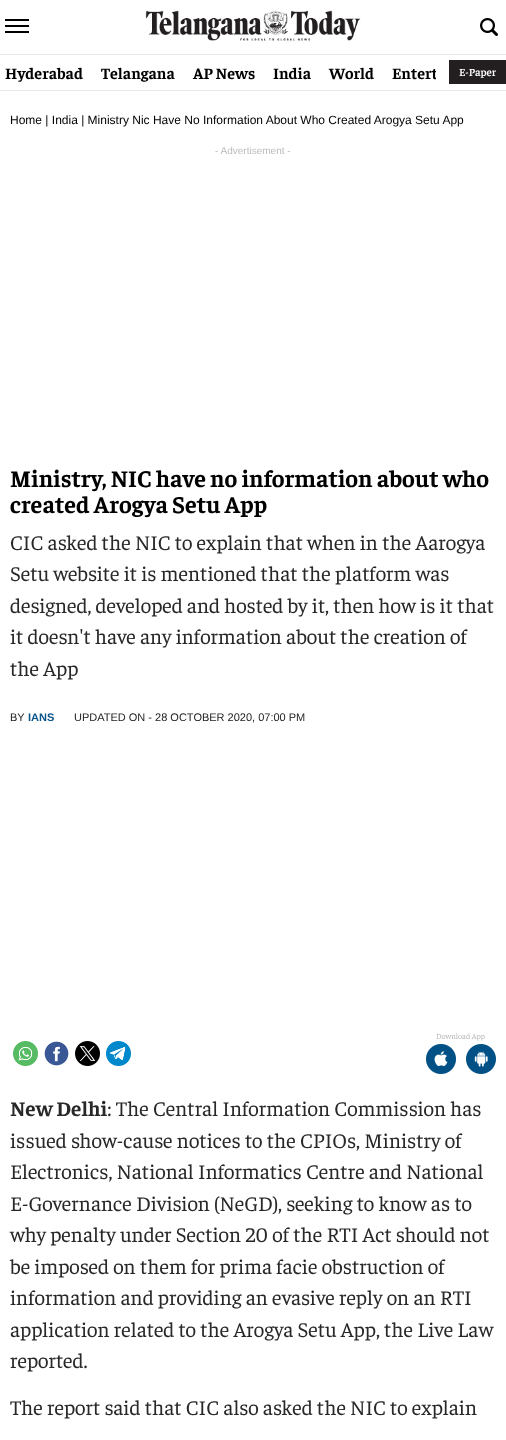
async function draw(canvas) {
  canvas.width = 506
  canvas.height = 1440
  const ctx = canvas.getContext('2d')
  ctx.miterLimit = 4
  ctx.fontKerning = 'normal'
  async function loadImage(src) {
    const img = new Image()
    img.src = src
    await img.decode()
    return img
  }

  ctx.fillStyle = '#fff'
  ctx.fillRect(0, 0, 506, 1440)
  ctx.fillStyle = '#000'
  ctx.fillRect(5, 19, 24, 2)
  ctx.fillRect(5, 25, 24, 2)
  ctx.fillRect(5, 31, 24, 2)
  ctx.drawImage(await loadImage('image0.png'), 145, 10, 216, 31)
  ctx.drawImage(await loadImage('image1.png'), 480, 18, 18, 18)
  ctx.fillStyle = '#e8e8e8'
  ctx.fillRect(0, 54, 506, 1)
  ctx.fillRect(0, 90, 506, 1)
  ctx.font = 'bold 16px Faustina'
  ctx.fillStyle = '#000'
  ctx.fillText('Hyderabad', 5, 79)
  ctx.fillText('Telangana', 101, 79)
  ctx.fillText('AP News', 193, 79)
  ctx.fillText('India', 273, 79)
  ctx.fillText('World', 329, 79)
  ctx.save()
  ctx.beginPath()
  ctx.rect(0, 55, 436, 35)
  ctx.clip()
  ctx.fillText('Entert', 392, 79)
  ctx.restore()
  ctx.fillStyle = '#231f20'
  ctx.fillRect(449, 60, 57, 24)
  ctx.font = '600 11px Faustina'
  ctx.fillStyle = '#fff'
  ctx.fillText('E-Paper', 459, 76)
  ctx.font = '12px Liberation Sans'
  ctx.fillStyle = '#000'
  ctx.fillText('Home | India | Ministry Nic Have No Information About Who Created Arogya Setu App', 10, 124)
  ctx.font = '10px Liberation Sans'
  ctx.fillStyle = '#bbb'
  ctx.fillText('- Advertisement -', 215, 154)
  ctx.font = 'bold 24px Faustina'
  ctx.fillStyle = '#000'
  ctx.fillText('Ministry, NIC have no information about who', 10, 487)
  ctx.fillText('created Arogya Setu App', 10, 513)
  ctx.font = '21px Faustina'
  ctx.fillStyle = '#282828'
  ctx.fillText('CIC asked the NIC to explain that when in the Aarogya', 10, 550)
  ctx.fillText('Setu website it is mentioned that the platform was', 10, 581)
  ctx.fillText('designed, developed and hosted by it, then how is it that', 10, 613)
  ctx.fillText('it doesn\'t have any information about the creation of', 10, 644)
  ctx.fillText('the App', 10, 676)
  ctx.font = '11px Liberation Sans'
  ctx.fillStyle = '#222'
  ctx.fillText('BY', 10, 721)
  ctx.font = 'bold 11px Liberation Sans'
  ctx.fillStyle = '#0a558a'
  ctx.fillText('IANS', 28, 721)
  ctx.font = '11px Liberation Sans'
  ctx.fillStyle = '#222'
  ctx.fillText('UPDATED ON - 28 OCTOBER 2020, 07:00 PM', 74, 721)
  ctx.font = '8px Faustina'
  ctx.fillStyle = '#bbb'
  ctx.fillText('Download App', 436, 1039)
  ctx.drawImage(await loadImage('image2.png'), 426, 1044, 30, 30)
  ctx.drawImage(await loadImage('image3.png'), 466, 1044, 30, 30)
  ctx.drawImage(await loadImage('image4.png'), 13, 1041, 25, 25)
  ctx.drawImage(await loadImage('image5.png'), 44, 1041, 25, 25)
  ctx.drawImage(await loadImage('image6.png'), 75, 1041, 25, 25)
  ctx.drawImage(await loadImage('image7.png'), 106, 1041, 25, 25)
  ctx.font = 'bold 21px Faustina'
  ctx.fillStyle = '#282828'
  ctx.fillText('New Delhi', 10, 1116)
  ctx.font = '21px Faustina'
  ctx.fillText(': The Central Information Commission has', 107, 1116)
  ctx.fillText('issued show-cause notices to the CPIOs, Ministry of', 10, 1148)
  ctx.fillText('Electronics, National Informatics Centre and National', 10, 1179)
  ctx.fillText('E-Governance Division (NeGD), seeking to know as to', 10, 1211)
  ctx.fillText('why penalty under Section 20 of the RTI Act should not', 10, 1242)
  ctx.fillText('be imposed on them for prima facie obstruction of', 10, 1274)
  ctx.fillText('information and providing an evasive reply on an RTI', 10, 1305)
  ctx.fillText('application related to the Arogya Setu App, the Live Law', 10, 1337)
  ctx.fillText('reported.', 10, 1368)
  ctx.fillText('The report said that CIC also asked the NIC to explain', 10, 1415)
}

draw(document.querySelector('canvas'))
